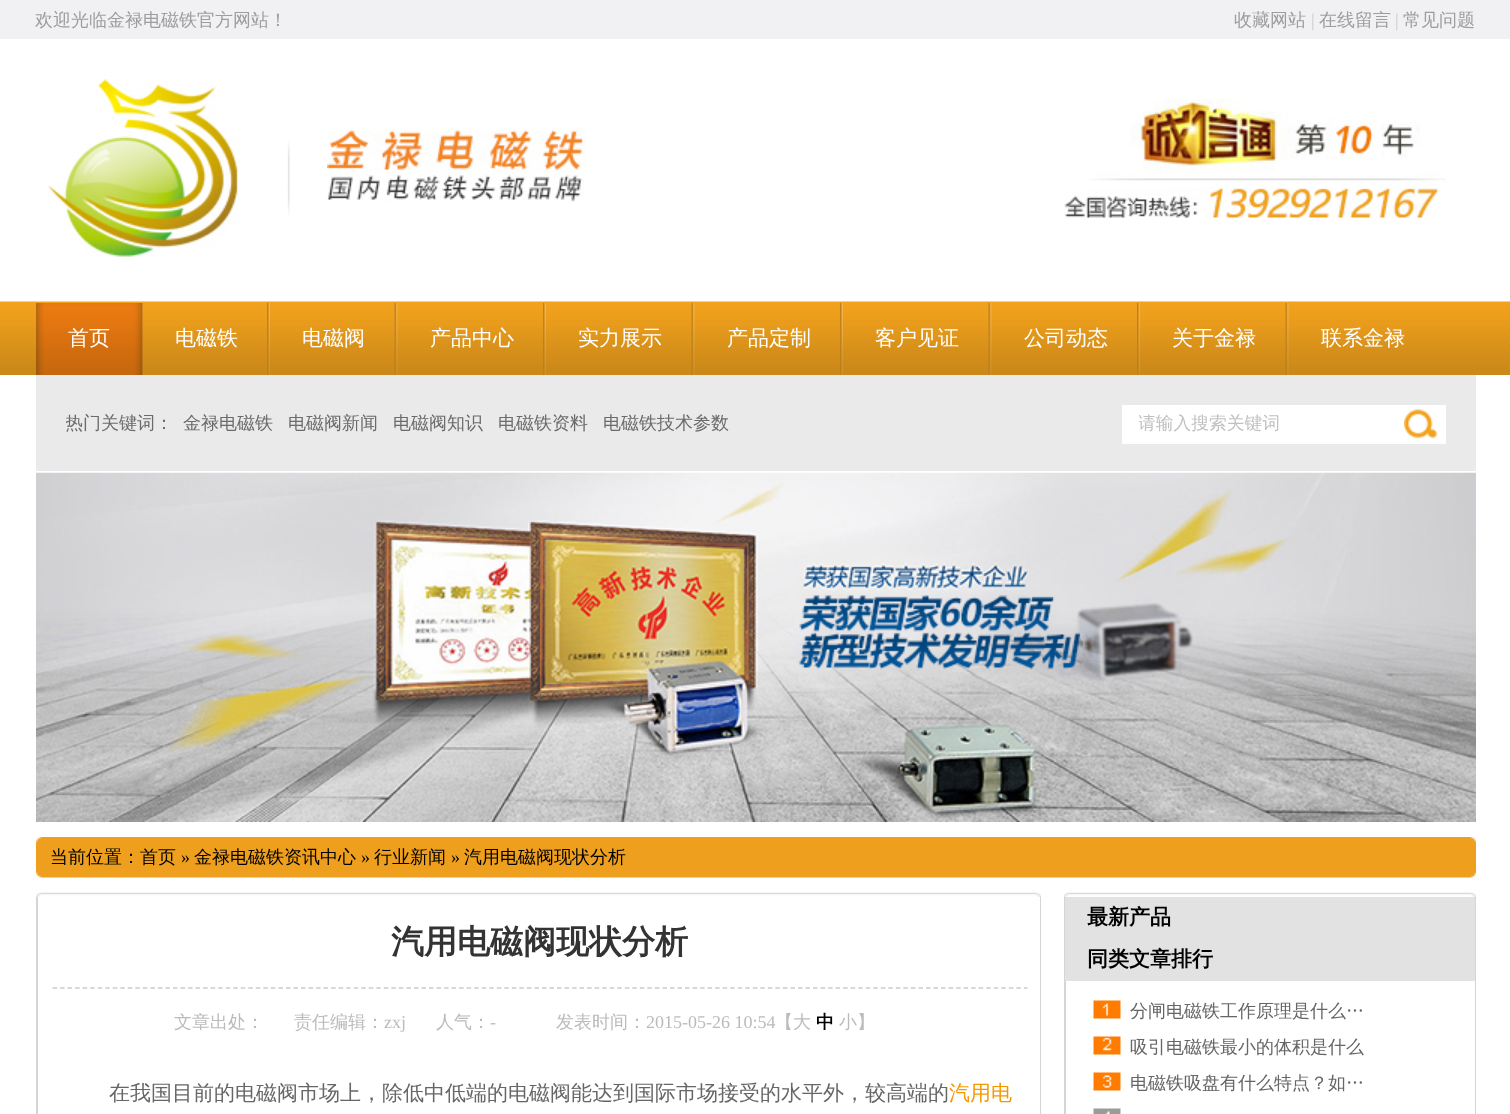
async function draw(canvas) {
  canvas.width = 1510
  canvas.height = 1114
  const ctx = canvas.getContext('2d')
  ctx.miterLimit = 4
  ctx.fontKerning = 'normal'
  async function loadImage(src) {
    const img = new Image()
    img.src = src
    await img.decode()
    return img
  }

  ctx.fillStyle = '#fff'
  ctx.fillRect(0, 0, 1510, 1114)
  ctx.fillStyle = '#f1f0f2'
  ctx.fillRect(0, 0, 1510, 39)
  ctx.font = '500 18px WenQuanYi Zen Hei'
  ctx.fillStyle = '#9d9c9e'
  ctx.fillText('欢迎光临金禄电磁铁官方网站！', 35, 26)
  ctx.fillText('收藏网站', 1234, 26)
  ctx.font = '18px Liberation Serif'
  ctx.fillStyle = '#ccc'
  ctx.fillText('|', 1311, 26)
  ctx.font = '500 18px WenQuanYi Zen Hei'
  ctx.fillStyle = '#9d9c9e'
  ctx.fillText('在线留言', 1319, 26)
  ctx.font = '18px Liberation Serif'
  ctx.fillStyle = '#ccc'
  ctx.fillText('|', 1395, 26)
  ctx.font = '500 18px WenQuanYi Zen Hei'
  ctx.fillStyle = '#9d9c9e'
  ctx.fillText('常见问题', 1403, 26)
  ctx.drawImage(await loadImage('image0.png'), 0, 301, 1510, 74)
  ctx.drawImage(await loadImage('image1.png'), 47, 79, 243, 178)
  ctx.drawImage(await loadImage('image2.png'), 327, 130, 262, 72)
  ctx.drawImage(await loadImage('image3.png'), 1089, 99, 357, 82)
  ctx.drawImage(await loadImage('image4.png'), 1064, 188, 375, 30)
  ctx.drawImage(await loadImage('image5.png'), 142, 303, 1, 72)
  ctx.drawImage(await loadImage('image6.png'), 44, 303, 99, 72)
  ctx.drawImage(await loadImage('image7.png'), 36, 303, 8, 72)
  ctx.font = '500 21px WenQuanYi Zen Hei'
  ctx.fillStyle = '#fff'
  ctx.fillText('首页', 68, 345)
  ctx.drawImage(await loadImage('image8.png'), 267, 303, 3, 72)
  ctx.fillText('电磁铁', 175, 345)
  ctx.drawImage(await loadImage('image9.png'), 394, 303, 4, 72)
  ctx.fillText('电磁阀', 302, 345)
  ctx.drawImage(await loadImage('image10.png'), 543, 303, 3, 72)
  ctx.fillText('产品中心', 430, 345)
  ctx.drawImage(await loadImage('image9.png'), 691, 303, 4, 72)
  ctx.fillText('实力展示', 578, 345)
  ctx.drawImage(await loadImage('image10.png'), 840, 303, 3, 72)
  ctx.fillText('产品定制', 727, 345)
  ctx.drawImage(await loadImage('image9.png'), 988, 303, 4, 72)
  ctx.fillText('客户见证', 875, 345)
  ctx.drawImage(await loadImage('image8.png'), 1137, 303, 3, 72)
  ctx.fillText('公司动态', 1024, 345)
  ctx.drawImage(await loadImage('image9.png'), 1285, 303, 4, 72)
  ctx.fillText('关于金禄', 1172, 345)
  ctx.fillText('联系金禄', 1321, 345)
  ctx.fillStyle = '#eaeaea'
  ctx.fillRect(36, 375, 1440, 96)
  ctx.save()
  ctx.beginPath()
  ctx.rect(66, 405, 1005, 36)
  ctx.clip()
  ctx.font = '500 18px WenQuanYi Zen Hei'
  ctx.fillStyle = '#6c6b6b'
  ctx.fillText('热门关键词：', 65, 429)
  ctx.restore()
  ctx.font = '500 18px WenQuanYi Zen Hei'
  ctx.fillStyle = '#6c6b6b'
  ctx.fillText('金禄电磁铁', 183, 429)
  ctx.fillText('电磁阀新闻', 288, 429)
  ctx.fillText('电磁阀知识', 393, 429)
  ctx.fillText('电磁铁资料', 498, 429)
  ctx.fillText('电磁铁技术参数', 603, 429)
  ctx.fillStyle = '#fff'
  ctx.fillRect(1122, 405, 282, 39)
  ctx.save()
  ctx.beginPath()
  ctx.rect(1139, 413, 270, 24)
  ctx.clip()
  ctx.font = '500 17.75px WenQuanYi Zen Hei'
  ctx.fillStyle = '#c1c1c1'
  ctx.fillText('请输入搜索关键词', 1138, 429)
  ctx.restore()
  ctx.drawImage(await loadImage('image11.png'), 1404, 405, 42, 39)
  ctx.drawImage(await loadImage('image12.png'), 36, 472, 1440, 350)
  ctx.drawImage(await loadImage('image13.png'), 36, 837, 1440, 41)
  ctx.fillStyle = '#000'
  ctx.fillText('当前位置：首页', 50, 863)
  ctx.font = '18px Liberation Serif'
  ctx.fillText('»', 181, 863)
  ctx.font = '500 18px WenQuanYi Zen Hei'
  ctx.fillText('金禄电磁铁资讯中心', 194, 863)
  ctx.font = '18px Liberation Serif'
  ctx.fillText('»', 361, 863)
  ctx.font = '500 18px WenQuanYi Zen Hei'
  ctx.fillText('行业新闻', 374, 863)
  ctx.font = '18px Liberation Serif'
  ctx.fillText('»', 451, 863)
  ctx.font = '500 18px WenQuanYi Zen Hei'
  ctx.fillText('汽用电磁阀现状分析', 464, 863)
  ctx.drawImage(await loadImage('image14.png'), 36, 892, 1005, 5)
  ctx.fillStyle = '#d5d5d5'
  ctx.fillRect(1040, 897, 1, 217)
  ctx.fillRect(36, 897, 2, 217)
  ctx.beginPath()
  ctx.moveTo(52.5, 988)
  ctx.lineTo(1027.5, 988)
  ctx.strokeStyle = '#ccc'
  ctx.lineWidth = 1.5
  ctx.setLineDash([4.5, 3.03])
  ctx.stroke()
  ctx.font = 'bold 33px WenQuanYi Zen Hei'
  ctx.fillStyle = '#333'
  ctx.fillText('汽用电磁阀现状分析', 391, 953)
  ctx.font = '500 18px WenQuanYi Zen Hei'
  ctx.fillStyle = '#bcbbbb'
  ctx.fillText('文章出处：', 174, 1028)
  ctx.fillText('责任编辑：', 294, 1028)
  ctx.font = '18px Liberation Serif'
  ctx.fillText('zxj', 384, 1028)
  ctx.font = '500 18px WenQuanYi Zen Hei'
  ctx.fillText('人气：', 436, 1028)
  ctx.font = '18px Liberation Serif'
  ctx.fillText('-', 490, 1028)
  ctx.font = '500 18px WenQuanYi Zen Hei'
  ctx.fillText('发表时间：', 556, 1028)
  ctx.font = '18px Liberation Serif'
  ctx.fillText('2015-05-26 10:54', 646, 1028)
  ctx.font = '500 18px WenQuanYi Zen Hei'
  ctx.fillText('【大', 775, 1028)
  ctx.font = 'bold 18px WenQuanYi Zen Hei'
  ctx.fillStyle = '#000'
  ctx.fillText('中', 816, 1028)
  ctx.font = '500 18px WenQuanYi Zen Hei'
  ctx.fillStyle = '#bcbbbb'
  ctx.fillText('小】', 839, 1028)
  ctx.font = '500 21px WenQuanYi Zen Hei'
  ctx.fillStyle = '#666'
  ctx.fillText('在我国目前的电磁阀市场上，除低中低端的电磁阀能达到国际市场接受的水平外，较高端的', 109, 1100)
  ctx.fillStyle = '#f79800'
  ctx.fillText('汽用电', 949, 1100)
  ctx.drawImage(await loadImage('image15.png'), 1063, 892, 413, 5)
  ctx.fillStyle = '#d5d5d5'
  ctx.fillRect(1475, 897, 1, 217)
  ctx.fillRect(1064, 897, 2, 217)
  ctx.fillStyle = '#e2e2e2'
  ctx.fillRect(1065, 897, 410, 84)
  ctx.font = 'bold 21px WenQuanYi Zen Hei'
  ctx.fillStyle = '#000'
  ctx.fillText('最新产品', 1087, 924)
  ctx.fillText('同类文章排行', 1087, 966)
  ctx.drawImage(await loadImage('image16.png'), 1093, 1000, 28, 114)
  ctx.font = '500 18px WenQuanYi Zen Hei'
  ctx.fillStyle = '#666'
  ctx.fillText('分闸电磁铁工作原理是什么…', 1130, 1017)
  ctx.fillText('吸引电磁铁最小的体积是什么', 1130, 1053)
  ctx.fillText('电磁铁吸盘有什么特点？如…', 1130, 1089)
}

draw(document.querySelector('canvas'))
